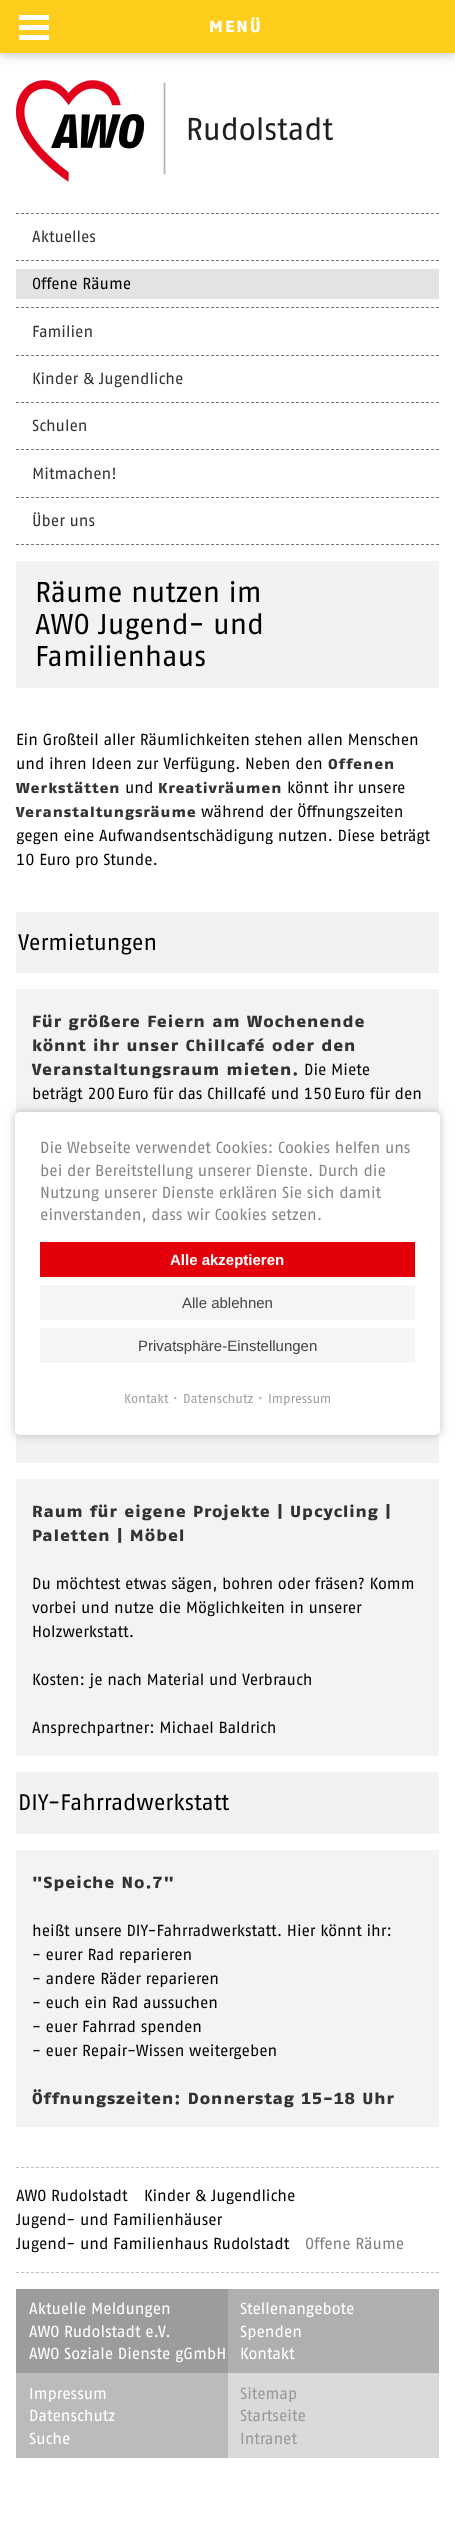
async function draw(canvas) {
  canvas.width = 455
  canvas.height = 2547
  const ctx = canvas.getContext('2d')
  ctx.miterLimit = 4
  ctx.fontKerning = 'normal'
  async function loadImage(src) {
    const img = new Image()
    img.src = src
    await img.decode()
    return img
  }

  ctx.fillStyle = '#fff'
  ctx.fillRect(0, 0, 455, 2547)
  ctx.fillStyle = '#00000047'
  ctx.filter = 'blur(6px)'
  ctx.beginPath()
  ctx.rect(0, 1, 455, 53)
  ctx.fill()
  ctx.filter = 'none'
  ctx.fillStyle = '#fecd1b'
  ctx.fillRect(0, 0, 455, 53)
  ctx.fillStyle = '#fff'
  ctx.fillRect(19, 15, 30, 5)
  ctx.fillRect(19, 25, 30, 5)
  ctx.fillRect(19, 35, 30, 5)
  ctx.letterSpacing = '2px'
  ctx.font = 'bold 16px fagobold'
  ctx.fillText('MENÜ', 209, 32)
  ctx.drawImage(await loadImage('image0.png'), 16, 80, 317, 102)
  ctx.beginPath()
  ctx.moveTo(16, 213.5)
  ctx.lineTo(439, 213.5)
  ctx.strokeStyle = '#7a7a7a'
  ctx.setLineDash([3, 2])
  ctx.stroke()
  ctx.beginPath()
  ctx.moveTo(16, 260.5)
  ctx.lineTo(439, 260.5)
  ctx.stroke()
  ctx.letterSpacing = '0px'
  ctx.font = '16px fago'
  ctx.fillStyle = '#333'
  ctx.fillText('Aktuelles', 32, 242)
  ctx.beginPath()
  ctx.moveTo(16, 307.5)
  ctx.lineTo(439, 307.5)
  ctx.stroke()
  ctx.fillStyle = '#e3e3e3'
  ctx.fillRect(16, 269, 423, 30)
  ctx.fillStyle = '#000'
  ctx.fillText('Offene Räume', 32, 289)
  ctx.beginPath()
  ctx.moveTo(16, 355.5)
  ctx.lineTo(439, 355.5)
  ctx.stroke()
  ctx.fillStyle = '#333'
  ctx.fillText('Familien', 32, 337)
  ctx.beginPath()
  ctx.moveTo(16, 402.5)
  ctx.lineTo(439, 402.5)
  ctx.stroke()
  ctx.fillText('Kinder & Jugendliche', 32, 384)
  ctx.beginPath()
  ctx.moveTo(16, 449.5)
  ctx.lineTo(439, 449.5)
  ctx.stroke()
  ctx.fillText('Schulen', 32, 431)
  ctx.beginPath()
  ctx.moveTo(16, 497.5)
  ctx.lineTo(439, 497.5)
  ctx.stroke()
  ctx.fillText('Mitmachen!', 32, 479)
  ctx.beginPath()
  ctx.moveTo(16, 544.5)
  ctx.lineTo(439, 544.5)
  ctx.stroke()
  ctx.fillText('Über uns', 32, 526)
  ctx.fillStyle = '#f2f2f2'
  ctx.fillRect(16, 561, 423, 127)
  ctx.font = '28.75px fago'
  ctx.fillStyle = '#000'
  ctx.fillText('Räume nutzen im', 35, 602)
  ctx.fillText('AWO Jugend- und', 35, 634)
  ctx.fillText('Familienhaus', 35, 666)
  ctx.font = '16px fago'
  ctx.fillText('Ein Großteil aller Räumlichkeiten stehen allen Menschen', 16, 745)
  ctx.fillText('und ihren Ideen zur Verfügung. Neben den', 16, 769)
  ctx.letterSpacing = '1px'
  ctx.font = 'bold 14.4px fagobold'
  ctx.fillStyle = '#333'
  ctx.fillText('Offenen', 328, 769)
  ctx.fillText('Werkstätten', 16, 793)
  ctx.letterSpacing = '0px'
  ctx.font = '16px fago'
  ctx.fillStyle = '#000'
  ctx.fillText('und', 125, 793)
  ctx.letterSpacing = '1px'
  ctx.font = 'bold 14.4px fagobold'
  ctx.fillStyle = '#333'
  ctx.fillText('Kreativräumen', 158, 793)
  ctx.letterSpacing = '0px'
  ctx.font = '16px fago'
  ctx.fillStyle = '#000'
  ctx.fillText('könnt ihr unsere', 287, 793)
  ctx.letterSpacing = '1px'
  ctx.font = 'bold 14.4px fagobold'
  ctx.fillStyle = '#333'
  ctx.fillText('Veranstaltungsräume', 16, 817)
  ctx.letterSpacing = '0px'
  ctx.font = '16px fago'
  ctx.fillStyle = '#000'
  ctx.fillText('während der Öffnungszeiten', 201, 817)
  ctx.fillText('gegen eine Aufwandsentschädigung nutzen. Diese beträgt', 16, 841)
  ctx.fillText('10 Euro pro Stunde.', 16, 865)
  ctx.fillStyle = '#f2f2f2'
  ctx.fillRect(16, 912, 423, 61)
  ctx.font = '22.5px fago'
  ctx.fillStyle = '#000'
  ctx.fillText('Vermietungen', 18, 950)
  ctx.fillStyle = '#f3f3f3'
  ctx.fillRect(16, 989, 423, 125)
  ctx.letterSpacing = '1px'
  ctx.font = 'bold 16px fagobold'
  ctx.fillStyle = '#333'
  ctx.fillText('Für größere Feiern am Wochenende', 32, 1027)
  ctx.fillText('könnt ihr unser Chillcafé oder den', 32, 1051)
  ctx.fillText('Veranstaltungsraum mieten.', 32, 1075)
  ctx.letterSpacing = '0px'
  ctx.font = '16px fago'
  ctx.fillStyle = '#000'
  ctx.fillText('Die Miete', 304, 1075)
  ctx.fillText('beträgt 200 Euro für das Chillcafé und 150 Euro für den', 32, 1099)
  ctx.fillStyle = '#f2f2f2'
  ctx.fillRect(16, 1433, 423, 30)
  ctx.fillStyle = '#f3f3f3'
  ctx.fillRect(16, 1479, 423, 277)
  ctx.letterSpacing = '1px'
  ctx.font = 'bold 16px fagobold'
  ctx.fillStyle = '#333'
  ctx.fillText('Raum für eigene Projekte | Upcycling |', 32, 1517)
  ctx.fillText('Paletten | Möbel', 32, 1541)
  ctx.letterSpacing = '0px'
  ctx.font = '16px fago'
  ctx.fillStyle = '#000'
  ctx.fillText('Du möchtest etwas sägen, bohren oder fräsen? Komm', 32, 1589)
  ctx.fillText('vorbei und nutze die Möglichkeiten in unserer', 32, 1613)
  ctx.fillText('Holzwerkstatt.', 32, 1637)
  ctx.fillText('Kosten: je nach Material und Verbrauch', 32, 1685)
  ctx.fillText('Ansprechpartner: Michael Baldrich', 32, 1733)
  ctx.fillStyle = '#f2f2f2'
  ctx.fillRect(16, 1772, 423, 62)
  ctx.font = '22.5px fago'
  ctx.fillStyle = '#000'
  ctx.fillText('DIY-Fahrradwerkstatt', 18, 1810)
  ctx.fillStyle = '#f3f3f3'
  ctx.fillRect(16, 1850, 423, 277)
  ctx.letterSpacing = '1px'
  ctx.font = 'bold 16px fagobold'
  ctx.fillStyle = '#333'
  ctx.fillText('"Speiche No.7"', 32, 1888)
  ctx.letterSpacing = '0px'
  ctx.font = '16px fago'
  ctx.fillStyle = '#000'
  ctx.fillText('heißt unsere DIY-Fahrradwerkstatt. Hier könnt ihr:', 32, 1936)
  ctx.fillText('- eurer Rad reparieren', 32, 1960)
  ctx.fillText('- andere Räder reparieren', 32, 1984)
  ctx.fillText('- euch ein Rad aussuchen', 32, 2008)
  ctx.fillText('- euer Fahrrad spenden', 32, 2032)
  ctx.fillText('- euer Repair-Wissen weitergeben', 32, 2056)
  ctx.letterSpacing = '1px'
  ctx.font = 'bold 16px fagobold'
  ctx.fillStyle = '#333'
  ctx.fillText('Öffnungszeiten: Donnerstag 15-18 Uhr', 32, 2104)
  ctx.beginPath()
  ctx.moveTo(16, 2167.5)
  ctx.lineTo(439, 2167.5)
  ctx.strokeStyle = '#c0c0c0'
  ctx.stroke()
  ctx.beginPath()
  ctx.moveTo(16, 2272.5)
  ctx.lineTo(439, 2272.5)
  ctx.stroke()
  ctx.letterSpacing = '0px'
  ctx.font = '16px fago'
  ctx.fillStyle = '#000'
  ctx.fillText('AWO Rudolstadt', 16, 2201)
  ctx.fillText('Kinder & Jugendliche', 144, 2201)
  ctx.fillText('Jugend- und Familienhäuser', 16, 2225)
  ctx.fillText('Jugend- und Familienhaus Rudolstadt', 16, 2249)
  ctx.fillStyle = '#808080'
  ctx.fillText('Offene Räume', 305, 2249)
  ctx.fillStyle = '#dadada'
  ctx.fillRect(228, 2373, 211, 85)
  ctx.fillStyle = '#9d9c9c'
  ctx.fillRect(16, 2289, 212, 84)
  ctx.fillStyle = '#fff'
  ctx.fillText('Aktuelle Meldungen', 29, 2314)
  ctx.fillText('AWO Rudolstadt e.V.', 29, 2337)
  ctx.fillText('AWO Soziale Dienste gGmbH', 29, 2359)
  ctx.fillStyle = '#afafaf'
  ctx.fillRect(228, 2289, 211, 84)
  ctx.fillStyle = '#fff'
  ctx.fillText('Stellenangebote', 240, 2314)
  ctx.fillText('Spenden', 240, 2337)
  ctx.fillText('Kontakt', 240, 2359)
  ctx.fillStyle = '#bcbbbb'
  ctx.fillRect(16, 2373, 212, 85)
  ctx.fillStyle = '#fff'
  ctx.fillText('Impressum', 29, 2399)
  ctx.fillText('Datenschutz', 29, 2421)
  ctx.fillText('Suche', 29, 2444)
  ctx.fillStyle = '#999'
  ctx.fillText('Sitemap', 240, 2399)
  ctx.fillText('Startseite', 240, 2421)
  ctx.fillText('Intranet', 240, 2444)
  ctx.fillStyle = '#00000040'
  ctx.filter = 'blur(5px)'
  ctx.beginPath()
  ctx.roundRect(15, 1112, 425, 323, 5)
  ctx.fill()
  ctx.filter = 'none'
  ctx.fillStyle = '#fff'
  ctx.beginPath()
  ctx.roundRect(15, 1112, 425, 323, 5)
  ctx.fill()
  ctx.fillStyle = '#868686'
  ctx.fillText('Die Webseite verwendet Cookies: Cookies helfen uns', 40, 1153)
  ctx.fillText('bei der Bereitstellung unserer Dienste. Durch die', 40, 1176)
  ctx.fillText('Nutzung unserer Dienste erklären Sie sich damit', 40, 1198)
  ctx.fillText('einverstanden, dass wir Cookies setzen.', 40, 1220)
  ctx.fillStyle = '#e3000b'
  ctx.fillRect(40, 1242, 375, 35)
  ctx.font = 'bold 15px Liberation Sans'
  ctx.fillStyle = '#fff'
  ctx.fillText('Alle akzeptieren', 170, 1265)
  ctx.fillStyle = '#f5f5f5'
  ctx.fillRect(40, 1285, 375, 35)
  ctx.font = '15px Liberation Sans'
  ctx.fillStyle = '#444'
  ctx.fillText('Alle ablehnen', 182, 1308)
  ctx.fillStyle = '#f5f5f5'
  ctx.fillRect(40, 1328, 375, 35)
  ctx.fillStyle = '#444'
  ctx.fillText('Privatsphäre-Einstellungen', 138, 1351)
  ctx.font = '13px fago'
  ctx.fillStyle = '#a2a2a2'
  ctx.fillText('Kontakt', 124, 1403)
  ctx.fillText('·', 173, 1403)
  ctx.fillText('Datenschutz', 183, 1403)
  ctx.fillText('·', 258, 1403)
  ctx.fillText('Impressum', 268, 1403)
}

draw(document.querySelector('canvas'))
